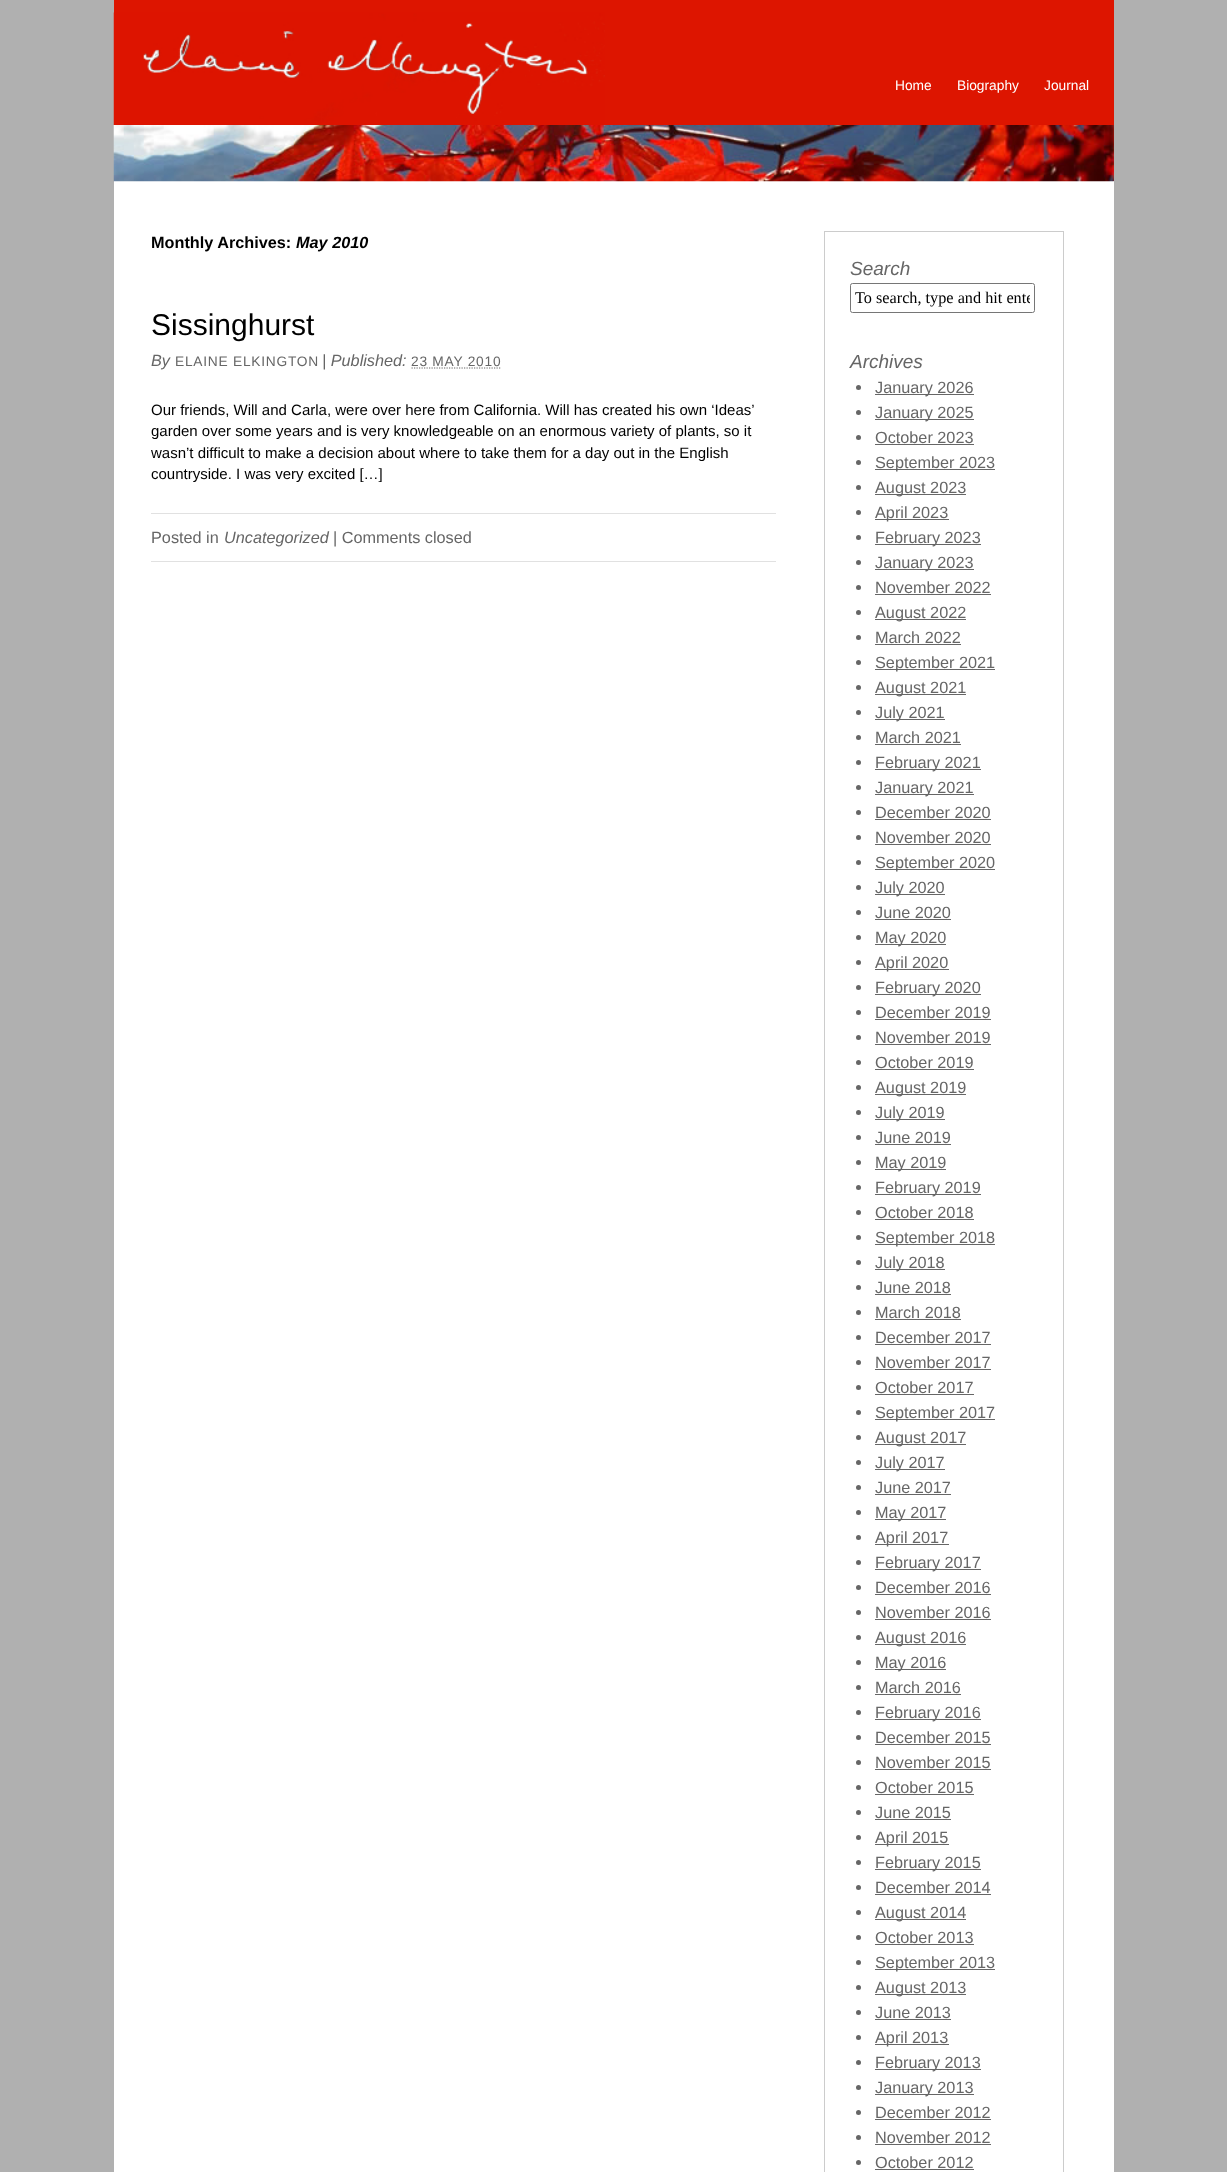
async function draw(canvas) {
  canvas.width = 1227
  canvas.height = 2172
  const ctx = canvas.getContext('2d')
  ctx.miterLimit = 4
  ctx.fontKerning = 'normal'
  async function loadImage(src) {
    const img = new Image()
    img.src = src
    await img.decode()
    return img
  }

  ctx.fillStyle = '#b0b0b0'
  ctx.fillRect(0, 0, 1227, 2172)
  ctx.fillStyle = '#dd1500'
  ctx.fillRect(114, 0, 1000, 181)
  ctx.drawImage(await loadImage('image0.png'), 113, 12, 492, 113)
  ctx.font = '13.75px Liberation Sans'
  ctx.fillStyle = '#fff'
  ctx.fillText('Home', 895, 90)
  ctx.fillText('Biography', 957, 90)
  ctx.fillText('Journal', 1044, 90)
  ctx.fillRect(114, 181, 1000, 1991)
  ctx.drawImage(await loadImage('image1.png'), 113, 125, 1001, 57)
  ctx.font = 'bold 16.25px Liberation Sans'
  ctx.fillStyle = '#000'
  ctx.fillText('Monthly Archives:', 151, 248)
  ctx.font = 'italic bold 16.25px Liberation Sans'
  ctx.fillText('May 2010', 296, 248)
  ctx.font = '30px Liberation Sans'
  ctx.fillText('Sissinghurst', 151, 335)
  ctx.font = 'italic 16.25px Liberation Sans'
  ctx.fillStyle = '#666'
  ctx.fillText('By', 151, 366)
  ctx.letterSpacing = '0.75px'
  ctx.font = '13.75px Liberation Sans'
  ctx.fillText('ELAINE ELKINGTON', 175, 366)
  ctx.letterSpacing = '0px'
  ctx.font = 'italic 16.25px Liberation Sans'
  ctx.fillText('| Published:', 322, 366)
  ctx.letterSpacing = '0.75px'
  ctx.font = '13.75px Liberation Sans'
  ctx.fillText('23 MAY 2010', 411, 366)
  ctx.beginPath()
  ctx.moveTo(411.5, 368)
  ctx.lineTo(501, 368)
  ctx.strokeStyle = '#666'
  ctx.lineWidth = 1.2
  ctx.setLineDash([1.25, 1.25])
  ctx.stroke()
  ctx.letterSpacing = '0px'
  ctx.font = '15px Liberation Sans'
  ctx.fillStyle = '#000'
  ctx.fillText('Our friends, Will and Carla, were over here from California. Will has created his own ‘Ideas’', 151, 415)
  ctx.fillText('garden over some years and is very knowledgeable on an enormous variety of plants, so it', 151, 436)
  ctx.fillText('wasn’t difficult to make a decision about where to take them for a day out in the English', 151, 458)
  ctx.fillText('countryside. I was very excited […]', 151, 479)
  ctx.fillStyle = '#e1e1e1'
  ctx.fillRect(151, 513, 625, 1)
  ctx.fillRect(151, 561, 625, 1)
  ctx.font = '16.25px Liberation Sans'
  ctx.fillStyle = '#666'
  ctx.fillText('Posted in', 151, 543)
  ctx.font = 'italic 16.25px Liberation Sans'
  ctx.fillText('Uncategorized', 224, 543)
  ctx.font = '16.25px Liberation Sans'
  ctx.fillText('| Comments closed', 333, 543)
  ctx.strokeStyle = '#ccc'
  ctx.lineWidth = 1
  ctx.setLineDash([])
  ctx.strokeRect(824.5, 231.5, 239, 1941)
  ctx.font = 'italic 19px Liberation Sans'
  ctx.fillText('Search', 850, 275)
  ctx.beginPath()
  ctx.roundRect(850.5, 283.5, 184, 29, 2)
  ctx.strokeStyle = '#767676'
  ctx.stroke()
  ctx.save()
  ctx.beginPath()
  ctx.rect(855, 286, 175, 23)
  ctx.clip()
  ctx.font = '16.25px Liberation Serif'
  ctx.fillStyle = '#000'
  ctx.fillText('To search, type and hit ente', 855, 303)
  ctx.restore()
  ctx.fillText('Archives', 850, 368)
  ctx.beginPath()
  ctx.arc(858.5, 387.5, 2.5, 0, 2 * Math.PI)
  ctx.fill()
  ctx.fillRect(875, 394, 99, 1)
  ctx.font = '16.25px Liberation Sans'
  ctx.fillText('January 2026', 875, 393)
  ctx.beginPath()
  ctx.arc(858.5, 412.5, 2.5, 0, 2 * Math.PI)
  ctx.fill()
  ctx.fillRect(875, 419, 99, 1)
  ctx.fillText('January 2025', 875, 418)
  ctx.beginPath()
  ctx.arc(858.5, 437.5, 2.5, 0, 2 * Math.PI)
  ctx.fill()
  ctx.fillText('October 2023', 875, 443)
  ctx.fillRect(875, 444, 99, 1)
  ctx.beginPath()
  ctx.arc(858.5, 462.5, 2.5, 0, 2 * Math.PI)
  ctx.fill()
  ctx.fillRect(875, 469, 120, 1)
  ctx.fillText('September 2023', 875, 468)
  ctx.beginPath()
  ctx.arc(858.5, 487.5, 2.5, 0, 2 * Math.PI)
  ctx.fill()
  ctx.fillRect(875, 494, 91, 1)
  ctx.fillText('August 2023', 875, 493)
  ctx.beginPath()
  ctx.arc(858.5, 512.5, 2.5, 0, 2 * Math.PI)
  ctx.fill()
  ctx.fillRect(875, 519, 74, 1)
  ctx.fillText('April 2023', 875, 518)
  ctx.beginPath()
  ctx.arc(858.5, 537.5, 2.5, 0, 2 * Math.PI)
  ctx.fill()
  ctx.fillRect(875, 544, 106, 1)
  ctx.fillText('February 2023', 875, 543)
  ctx.beginPath()
  ctx.arc(858.5, 562.5, 2.5, 0, 2 * Math.PI)
  ctx.fill()
  ctx.fillRect(875, 569, 99, 1)
  ctx.fillText('January 2023', 875, 568)
  ctx.beginPath()
  ctx.arc(858.5, 587.5, 2.5, 0, 2 * Math.PI)
  ctx.fill()
  ctx.fillText('November 2022', 875, 593)
  ctx.fillRect(875, 594, 116, 1)
  ctx.beginPath()
  ctx.arc(858.5, 612.5, 2.5, 0, 2 * Math.PI)
  ctx.fill()
  ctx.fillRect(875, 619, 91, 1)
  ctx.fillText('August 2022', 875, 618)
  ctx.beginPath()
  ctx.arc(858.5, 637.5, 2.5, 0, 2 * Math.PI)
  ctx.fill()
  ctx.fillText('March 2022', 875, 643)
  ctx.fillRect(875, 644, 86, 1)
  ctx.beginPath()
  ctx.arc(858.5, 662.5, 2.5, 0, 2 * Math.PI)
  ctx.fill()
  ctx.fillRect(875, 669, 120, 1)
  ctx.fillText('September 2021', 875, 668)
  ctx.beginPath()
  ctx.arc(858.5, 687.5, 2.5, 0, 2 * Math.PI)
  ctx.fill()
  ctx.fillRect(875, 694, 91, 1)
  ctx.fillText('August 2021', 875, 693)
  ctx.beginPath()
  ctx.arc(858.5, 712.5, 2.5, 0, 2 * Math.PI)
  ctx.fill()
  ctx.fillRect(875, 719, 70, 1)
  ctx.fillText('July 2021', 875, 718)
  ctx.beginPath()
  ctx.arc(858.5, 737.5, 2.5, 0, 2 * Math.PI)
  ctx.fill()
  ctx.fillText('March 2021', 875, 743)
  ctx.fillRect(875, 744, 86, 1)
  ctx.beginPath()
  ctx.arc(858.5, 762.5, 2.5, 0, 2 * Math.PI)
  ctx.fill()
  ctx.fillRect(875, 769, 106, 1)
  ctx.fillText('February 2021', 875, 768)
  ctx.beginPath()
  ctx.arc(858.5, 787.5, 2.5, 0, 2 * Math.PI)
  ctx.fill()
  ctx.fillRect(875, 794, 99, 1)
  ctx.fillText('January 2021', 875, 793)
  ctx.beginPath()
  ctx.arc(858.5, 812.5, 2.5, 0, 2 * Math.PI)
  ctx.fill()
  ctx.fillText('December 2020', 875, 818)
  ctx.fillRect(875, 819, 116, 1)
  ctx.beginPath()
  ctx.arc(858.5, 837.5, 2.5, 0, 2 * Math.PI)
  ctx.fill()
  ctx.fillText('November 2020', 875, 843)
  ctx.fillRect(875, 844, 116, 1)
  ctx.beginPath()
  ctx.arc(858.5, 862.5, 2.5, 0, 2 * Math.PI)
  ctx.fill()
  ctx.fillRect(875, 869, 120, 1)
  ctx.fillText('September 2020', 875, 868)
  ctx.beginPath()
  ctx.arc(858.5, 887.5, 2.5, 0, 2 * Math.PI)
  ctx.fill()
  ctx.fillRect(875, 894, 70, 1)
  ctx.fillText('July 2020', 875, 893)
  ctx.beginPath()
  ctx.arc(858.5, 912.5, 2.5, 0, 2 * Math.PI)
  ctx.fill()
  ctx.fillText('June 2020', 875, 918)
  ctx.fillRect(875, 919, 76, 1)
  ctx.beginPath()
  ctx.arc(858.5, 937.5, 2.5, 0, 2 * Math.PI)
  ctx.fill()
  ctx.fillRect(875, 944, 71, 1)
  ctx.fillText('May 2020', 875, 943)
  ctx.beginPath()
  ctx.arc(858.5, 962.5, 2.5, 0, 2 * Math.PI)
  ctx.fill()
  ctx.fillRect(875, 969, 74, 1)
  ctx.fillText('April 2020', 875, 968)
  ctx.beginPath()
  ctx.arc(858.5, 987.5, 2.5, 0, 2 * Math.PI)
  ctx.fill()
  ctx.fillRect(875, 994, 106, 1)
  ctx.fillText('February 2020', 875, 993)
  ctx.beginPath()
  ctx.arc(858.5, 1012.5, 2.5, 0, 2 * Math.PI)
  ctx.fill()
  ctx.fillText('December 2019', 875, 1018)
  ctx.fillRect(875, 1019, 116, 1)
  ctx.beginPath()
  ctx.arc(858.5, 1037.5, 2.5, 0, 2 * Math.PI)
  ctx.fill()
  ctx.fillText('November 2019', 875, 1043)
  ctx.fillRect(875, 1044, 116, 1)
  ctx.beginPath()
  ctx.arc(858.5, 1062.5, 2.5, 0, 2 * Math.PI)
  ctx.fill()
  ctx.fillText('October 2019', 875, 1068)
  ctx.fillRect(875, 1069, 99, 1)
  ctx.beginPath()
  ctx.arc(858.5, 1087.5, 2.5, 0, 2 * Math.PI)
  ctx.fill()
  ctx.fillRect(875, 1094, 91, 1)
  ctx.fillText('August 2019', 875, 1093)
  ctx.beginPath()
  ctx.arc(858.5, 1112.5, 2.5, 0, 2 * Math.PI)
  ctx.fill()
  ctx.fillRect(875, 1119, 70, 1)
  ctx.fillText('July 2019', 875, 1118)
  ctx.beginPath()
  ctx.arc(858.5, 1137.5, 2.5, 0, 2 * Math.PI)
  ctx.fill()
  ctx.fillText('June 2019', 875, 1143)
  ctx.fillRect(875, 1144, 76, 1)
  ctx.beginPath()
  ctx.arc(858.5, 1162.5, 2.5, 0, 2 * Math.PI)
  ctx.fill()
  ctx.fillRect(875, 1169, 71, 1)
  ctx.fillText('May 2019', 875, 1168)
  ctx.beginPath()
  ctx.arc(858.5, 1187.5, 2.5, 0, 2 * Math.PI)
  ctx.fill()
  ctx.fillRect(875, 1194, 106, 1)
  ctx.fillText('February 2019', 875, 1193)
  ctx.beginPath()
  ctx.arc(858.5, 1212.5, 2.5, 0, 2 * Math.PI)
  ctx.fill()
  ctx.fillText('October 2018', 875, 1218)
  ctx.fillRect(875, 1219, 99, 1)
  ctx.beginPath()
  ctx.arc(858.5, 1237.5, 2.5, 0, 2 * Math.PI)
  ctx.fill()
  ctx.fillRect(875, 1244, 120, 1)
  ctx.fillText('September 2018', 875, 1243)
  ctx.beginPath()
  ctx.arc(858.5, 1262.5, 2.5, 0, 2 * Math.PI)
  ctx.fill()
  ctx.fillRect(875, 1269, 70, 1)
  ctx.fillText('July 2018', 875, 1268)
  ctx.beginPath()
  ctx.arc(858.5, 1287.5, 2.5, 0, 2 * Math.PI)
  ctx.fill()
  ctx.fillText('June 2018', 875, 1293)
  ctx.fillRect(875, 1294, 76, 1)
  ctx.beginPath()
  ctx.arc(858.5, 1312.5, 2.5, 0, 2 * Math.PI)
  ctx.fill()
  ctx.fillText('March 2018', 875, 1318)
  ctx.fillRect(875, 1319, 86, 1)
  ctx.beginPath()
  ctx.arc(858.5, 1337.5, 2.5, 0, 2 * Math.PI)
  ctx.fill()
  ctx.fillText('December 2017', 875, 1343)
  ctx.fillRect(875, 1344, 116, 1)
  ctx.beginPath()
  ctx.arc(858.5, 1362.5, 2.5, 0, 2 * Math.PI)
  ctx.fill()
  ctx.fillText('November 2017', 875, 1368)
  ctx.fillRect(875, 1369, 116, 1)
  ctx.beginPath()
  ctx.arc(858.5, 1387.5, 2.5, 0, 2 * Math.PI)
  ctx.fill()
  ctx.fillText('October 2017', 875, 1393)
  ctx.fillRect(875, 1394, 99, 1)
  ctx.beginPath()
  ctx.arc(858.5, 1412.5, 2.5, 0, 2 * Math.PI)
  ctx.fill()
  ctx.fillRect(875, 1419, 120, 1)
  ctx.fillText('September 2017', 875, 1418)
  ctx.beginPath()
  ctx.arc(858.5, 1437.5, 2.5, 0, 2 * Math.PI)
  ctx.fill()
  ctx.fillRect(875, 1444, 91, 1)
  ctx.fillText('August 2017', 875, 1443)
  ctx.beginPath()
  ctx.arc(858.5, 1462.5, 2.5, 0, 2 * Math.PI)
  ctx.fill()
  ctx.fillRect(875, 1469, 70, 1)
  ctx.fillText('July 2017', 875, 1468)
  ctx.beginPath()
  ctx.arc(858.5, 1487.5, 2.5, 0, 2 * Math.PI)
  ctx.fill()
  ctx.fillText('June 2017', 875, 1493)
  ctx.fillRect(875, 1494, 76, 1)
  ctx.beginPath()
  ctx.arc(858.5, 1512.5, 2.5, 0, 2 * Math.PI)
  ctx.fill()
  ctx.fillRect(875, 1519, 71, 1)
  ctx.fillText('May 2017', 875, 1518)
  ctx.beginPath()
  ctx.arc(858.5, 1537.5, 2.5, 0, 2 * Math.PI)
  ctx.fill()
  ctx.fillRect(875, 1544, 74, 1)
  ctx.fillText('April 2017', 875, 1543)
  ctx.beginPath()
  ctx.arc(858.5, 1562.5, 2.5, 0, 2 * Math.PI)
  ctx.fill()
  ctx.fillRect(875, 1569, 106, 1)
  ctx.fillText('February 2017', 875, 1568)
  ctx.beginPath()
  ctx.arc(858.5, 1587.5, 2.5, 0, 2 * Math.PI)
  ctx.fill()
  ctx.fillText('December 2016', 875, 1593)
  ctx.fillRect(875, 1594, 116, 1)
  ctx.beginPath()
  ctx.arc(858.5, 1612.5, 2.5, 0, 2 * Math.PI)
  ctx.fill()
  ctx.fillText('November 2016', 875, 1618)
  ctx.fillRect(875, 1619, 116, 1)
  ctx.beginPath()
  ctx.arc(858.5, 1637.5, 2.5, 0, 2 * Math.PI)
  ctx.fill()
  ctx.fillRect(875, 1644, 91, 1)
  ctx.fillText('August 2016', 875, 1643)
  ctx.beginPath()
  ctx.arc(858.5, 1662.5, 2.5, 0, 2 * Math.PI)
  ctx.fill()
  ctx.fillRect(875, 1669, 71, 1)
  ctx.fillText('May 2016', 875, 1668)
  ctx.beginPath()
  ctx.arc(858.5, 1687.5, 2.5, 0, 2 * Math.PI)
  ctx.fill()
  ctx.fillText('March 2016', 875, 1693)
  ctx.fillRect(875, 1694, 86, 1)
  ctx.beginPath()
  ctx.arc(858.5, 1712.5, 2.5, 0, 2 * Math.PI)
  ctx.fill()
  ctx.fillRect(875, 1719, 106, 1)
  ctx.fillText('February 2016', 875, 1718)
  ctx.beginPath()
  ctx.arc(858.5, 1737.5, 2.5, 0, 2 * Math.PI)
  ctx.fill()
  ctx.fillText('December 2015', 875, 1743)
  ctx.fillRect(875, 1744, 116, 1)
  ctx.beginPath()
  ctx.arc(858.5, 1762.5, 2.5, 0, 2 * Math.PI)
  ctx.fill()
  ctx.fillText('November 2015', 875, 1768)
  ctx.fillRect(875, 1769, 116, 1)
  ctx.beginPath()
  ctx.arc(858.5, 1787.5, 2.5, 0, 2 * Math.PI)
  ctx.fill()
  ctx.fillText('October 2015', 875, 1793)
  ctx.fillRect(875, 1794, 99, 1)
  ctx.beginPath()
  ctx.arc(858.5, 1812.5, 2.5, 0, 2 * Math.PI)
  ctx.fill()
  ctx.fillText('June 2015', 875, 1818)
  ctx.fillRect(875, 1819, 76, 1)
  ctx.beginPath()
  ctx.arc(858.5, 1837.5, 2.5, 0, 2 * Math.PI)
  ctx.fill()
  ctx.fillRect(875, 1844, 74, 1)
  ctx.fillText('April 2015', 875, 1843)
  ctx.beginPath()
  ctx.arc(858.5, 1862.5, 2.5, 0, 2 * Math.PI)
  ctx.fill()
  ctx.fillRect(875, 1869, 106, 1)
  ctx.fillText('February 2015', 875, 1868)
  ctx.beginPath()
  ctx.arc(858.5, 1887.5, 2.5, 0, 2 * Math.PI)
  ctx.fill()
  ctx.fillText('December 2014', 875, 1893)
  ctx.fillRect(875, 1894, 116, 1)
  ctx.beginPath()
  ctx.arc(858.5, 1912.5, 2.5, 0, 2 * Math.PI)
  ctx.fill()
  ctx.fillRect(875, 1919, 91, 1)
  ctx.fillText('August 2014', 875, 1918)
  ctx.beginPath()
  ctx.arc(858.5, 1937.5, 2.5, 0, 2 * Math.PI)
  ctx.fill()
  ctx.fillText('October 2013', 875, 1943)
  ctx.fillRect(875, 1944, 99, 1)
  ctx.beginPath()
  ctx.arc(858.5, 1962.5, 2.5, 0, 2 * Math.PI)
  ctx.fill()
  ctx.fillRect(875, 1969, 120, 1)
  ctx.fillText('September 2013', 875, 1968)
  ctx.beginPath()
  ctx.arc(858.5, 1987.5, 2.5, 0, 2 * Math.PI)
  ctx.fill()
  ctx.fillRect(875, 1994, 91, 1)
  ctx.fillText('August 2013', 875, 1993)
  ctx.beginPath()
  ctx.arc(858.5, 2012.5, 2.5, 0, 2 * Math.PI)
  ctx.fill()
  ctx.fillText('June 2013', 875, 2018)
  ctx.fillRect(875, 2019, 76, 1)
  ctx.beginPath()
  ctx.arc(858.5, 2037.5, 2.5, 0, 2 * Math.PI)
  ctx.fill()
  ctx.fillRect(875, 2044, 74, 1)
  ctx.fillText('April 2013', 875, 2043)
  ctx.beginPath()
  ctx.arc(858.5, 2062.5, 2.5, 0, 2 * Math.PI)
  ctx.fill()
  ctx.fillRect(875, 2069, 106, 1)
  ctx.fillText('February 2013', 875, 2068)
  ctx.beginPath()
  ctx.arc(858.5, 2087.5, 2.5, 0, 2 * Math.PI)
  ctx.fill()
  ctx.fillRect(875, 2094, 99, 1)
  ctx.fillText('January 2013', 875, 2093)
  ctx.beginPath()
  ctx.arc(858.5, 2112.5, 2.5, 0, 2 * Math.PI)
  ctx.fill()
  ctx.fillText('December 2012', 875, 2118)
  ctx.fillRect(875, 2119, 116, 1)
  ctx.beginPath()
  ctx.arc(858.5, 2137.5, 2.5, 0, 2 * Math.PI)
  ctx.fill()
  ctx.fillText('November 2012', 875, 2143)
  ctx.fillRect(875, 2144, 116, 1)
  ctx.beginPath()
  ctx.arc(858.5, 2162.5, 2.5, 0, 2 * Math.PI)
  ctx.fill()
  ctx.fillText('October 2012', 875, 2168)
  ctx.fillRect(875, 2169, 99, 1)
}

draw(document.querySelector('canvas'))
